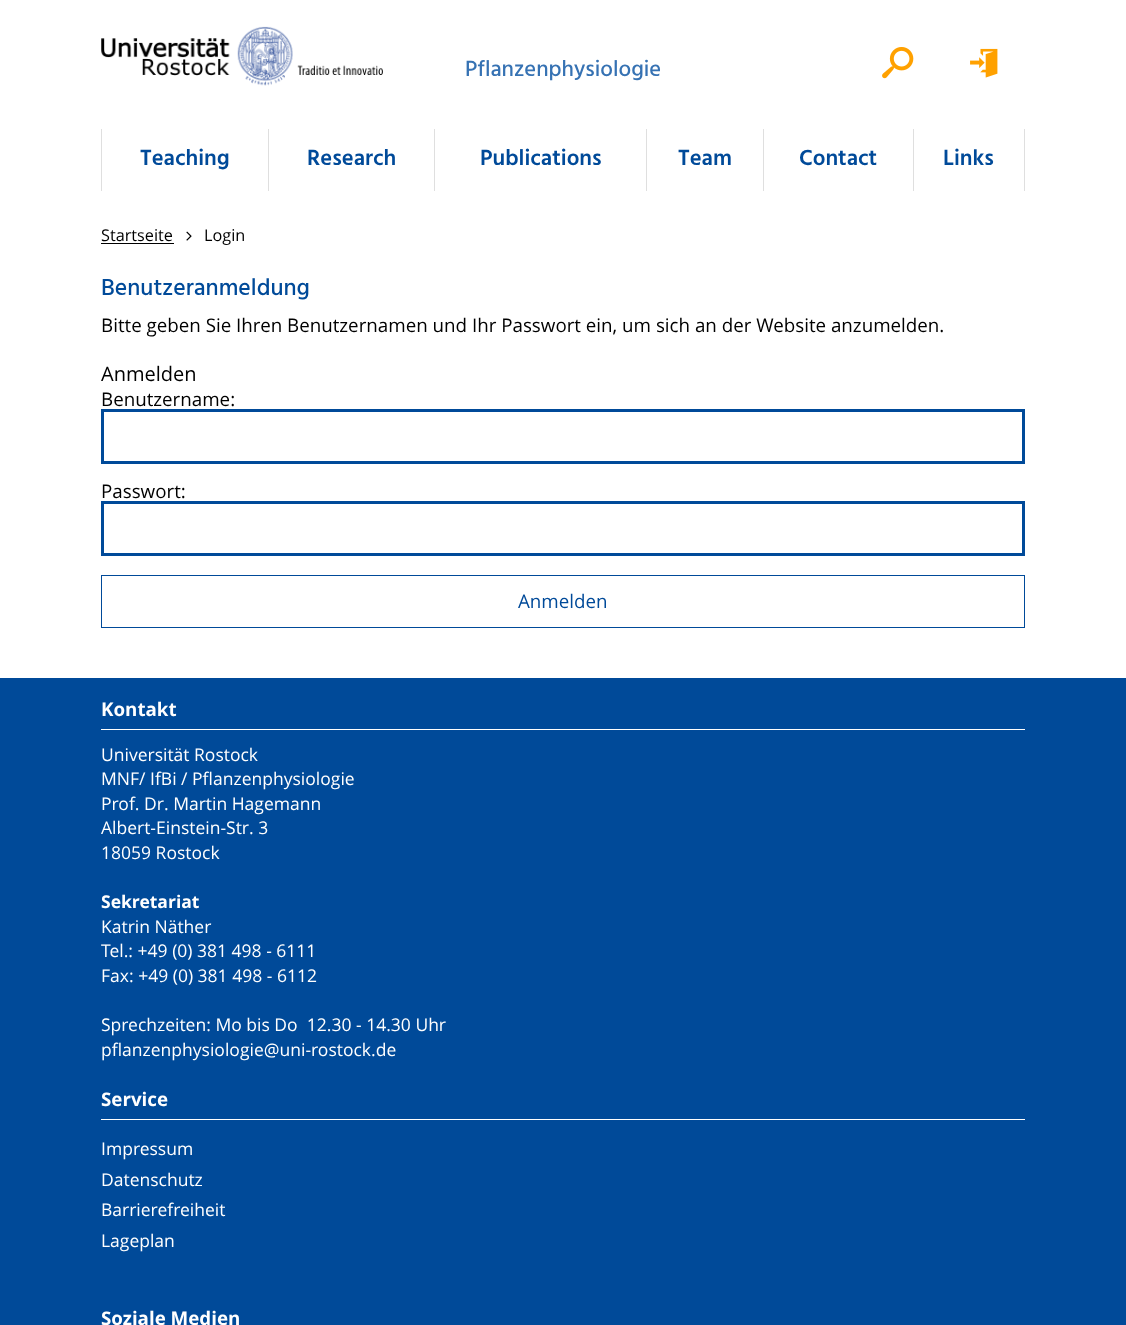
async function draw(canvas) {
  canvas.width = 1126
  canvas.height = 1325
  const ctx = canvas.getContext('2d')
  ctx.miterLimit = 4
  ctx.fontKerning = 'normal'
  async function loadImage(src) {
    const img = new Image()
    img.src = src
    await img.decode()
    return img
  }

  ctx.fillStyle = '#fff'
  ctx.fillRect(0, 0, 1126, 1325)
  ctx.drawImage(await loadImage('image0.png'), 101, 26, 282, 60)
  ctx.font = '500 22.5px Hind'
  ctx.fillStyle = '#3672b3'
  ctx.fillText('Pflanzenphysiologie', 465, 76)
  ctx.drawImage(await loadImage('image1.png'), 882, 47, 32, 32)
  ctx.drawImage(await loadImage('image2.png'), 970, 48, 28, 30)
  ctx.fillStyle = '#dfdfdf'
  ctx.fillRect(101, 129, 1, 62)
  ctx.font = '600 22.5px Hind'
  ctx.fillStyle = '#004a99'
  ctx.fillText('Teaching', 140, 165)
  ctx.fillStyle = '#dfdfdf'
  ctx.fillRect(268, 129, 1, 62)
  ctx.fillStyle = '#004a99'
  ctx.fillText('Research', 307, 165)
  ctx.fillStyle = '#dfdfdf'
  ctx.fillRect(434, 129, 1, 62)
  ctx.fillStyle = '#004a99'
  ctx.fillText('Publications', 480, 165)
  ctx.fillStyle = '#dfdfdf'
  ctx.fillRect(646, 129, 1, 62)
  ctx.fillStyle = '#004a99'
  ctx.fillText('Team', 678, 165)
  ctx.fillStyle = '#dfdfdf'
  ctx.fillRect(763, 129, 1, 62)
  ctx.fillStyle = '#004a99'
  ctx.fillText('Contact', 799, 165)
  ctx.fillStyle = '#dfdfdf'
  ctx.fillRect(1024, 129, 1, 62)
  ctx.fillRect(913, 129, 1, 62)
  ctx.fillStyle = '#004a99'
  ctx.fillText('Links', 943, 165)
  ctx.font = '16.25px Open Sans'
  ctx.fillStyle = '#000'
  ctx.fillText('Startseite', 101, 241)
  ctx.fillRect(101, 243, 73, 1)
  ctx.drawImage(await loadImage('image3.png'), 186, 231, 6, 10)
  ctx.fillText('Login', 204, 241)
  ctx.font = '500 23.75px Hind'
  ctx.fillStyle = '#004a99'
  ctx.fillText('Benutzeranmeldung', 101, 295)
  ctx.font = '18.75px Open Sans'
  ctx.fillStyle = '#000'
  ctx.fillText('Bitte geben Sie Ihren Benutzernamen und Ihr Passwort ein, um sich an der Website anzumelden.', 101, 332)
  ctx.font = '20px Open Sans'
  ctx.fillText('Anmelden', 101, 381)
  ctx.font = '18.75px Open Sans'
  ctx.fillText('Benutzername:', 101, 406)
  ctx.strokeStyle = '#004a99'
  ctx.lineWidth = 3
  ctx.strokeRect(102.5, 410.5, 921, 52)
  ctx.fillText('Passwort:', 101, 498)
  ctx.strokeRect(102.5, 502.5, 921, 52)
  ctx.lineWidth = 1
  ctx.strokeRect(101.5, 575.5, 923, 52)
  ctx.fillStyle = '#004a99'
  ctx.fillText('Anmelden', 518, 608)
  ctx.fillRect(0, 678, 1126, 647)
  ctx.fillStyle = '#fff'
  ctx.fillRect(101, 729, 924, 1)
  ctx.font = 'bold 18.75px Open Sans'
  ctx.fillText('Kontakt', 101, 716)
  ctx.font = '17.5px Open Sans'
  ctx.fillText('Universität Rostock', 101, 761)
  ctx.fillText('MNF/ IfBi / Pflanzenphysiologie', 101, 785)
  ctx.fillText('Prof. Dr. Martin Hagemann', 101, 810)
  ctx.fillText('Albert-Einstein-Str. 3', 101, 834)
  ctx.fillText('18059 Rostock', 101, 859)
  ctx.font = 'bold 17.5px Open Sans'
  ctx.fillText('Sekretariat', 101, 908)
  ctx.font = '17.5px Open Sans'
  ctx.fillText('Katrin Näther', 101, 933)
  ctx.fillText('Tel.: +49 (0) 381 498 - 6111', 101, 957)
  ctx.fillText('Fax: +49 (0) 381 498 - 6112', 101, 982)
  ctx.fillText('Sprechzeiten: Mo bis Do  12.30 - 14.30 Uhr', 101, 1031)
  ctx.fillText('pflanzenphysiologie@uni-rostock.de', 101, 1056)
  ctx.fillRect(101, 1119, 924, 1)
  ctx.font = 'bold 18.75px Open Sans'
  ctx.fillText('Service', 101, 1106)
  ctx.font = '17.5px Open Sans'
  ctx.fillText('Impressum', 101, 1155)
  ctx.fillText('Datenschutz', 101, 1186)
  ctx.fillText('Barrierefreiheit', 101, 1216)
  ctx.fillText('Lageplan', 101, 1247)
  ctx.font = 'bold 18.75px Open Sans'
  ctx.fillText('Soziale Medien', 101, 1325)
}

draw(document.querySelector('canvas'))
